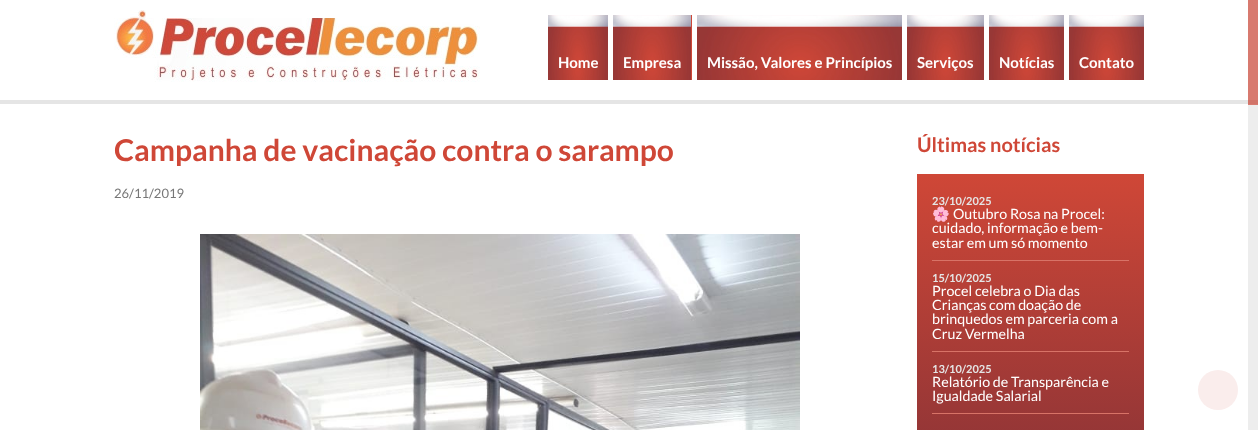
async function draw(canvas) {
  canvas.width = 1258
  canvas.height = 430
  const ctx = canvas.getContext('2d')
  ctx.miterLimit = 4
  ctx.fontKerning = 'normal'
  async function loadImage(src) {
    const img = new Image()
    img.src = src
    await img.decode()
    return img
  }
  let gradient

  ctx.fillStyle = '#fff'
  ctx.fillRect(0, 0, 1258, 430)
  ctx.fillStyle = '#ededed'
  ctx.fillRect(1248, 105, 10, 325)
  ctx.fillStyle = '#d87a6f'
  ctx.fillRect(1248, 0, 10, 105)
  ctx.drawImage(await loadImage('image0.png'), 114, 10, 366, 72)
  ctx.drawImage(await loadImage('image1.png'), 548, 15, 60, 65)
  ctx.font = 'bold 15px Lato'
  ctx.fillStyle = '#fff'
  ctx.fillText('Home', 558, 68)
  ctx.fillStyle = '#cf4737'
  ctx.fillRect(691, 15, 1, 65)
  ctx.drawImage(await loadImage('image2.png'), 613, 15, 78, 65)
  ctx.fillStyle = '#fff'
  ctx.fillText('Empresa', 623, 68)
  ctx.drawImage(await loadImage('image3.png'), 697, 15, 205, 65)
  ctx.fillText('Missão, Valores e Princípios', 707, 68)
  ctx.drawImage(await loadImage('image4.png'), 907, 15, 77, 65)
  ctx.fillText('Serviços', 917, 68)
  ctx.drawImage(await loadImage('image5.png'), 989, 15, 75, 65)
  ctx.fillText('Notícias', 999, 68)
  ctx.drawImage(await loadImage('image6.png'), 1069, 15, 75, 65)
  ctx.fillText('Contato', 1079, 68)
  ctx.fillStyle = '#e5e5e5'
  ctx.fillRect(0, 100, 1248, 4)
  ctx.fillStyle = '#d17368'
  ctx.fillRect(1248, 100, 10, 4)
  ctx.font = 'bold 30px Lato'
  ctx.fillStyle = '#cf4737'
  ctx.fillText('Campanha de vacinação contra o sarampo', 114, 161)
  ctx.font = '13px Lato'
  ctx.fillStyle = '#777'
  ctx.fillText('26/11/2019', 114, 198)
  ctx.drawImage(await loadImage('image7.png'), 200, 234, 600, 196)
  ctx.font = 'bold 20px Lato'
  ctx.fillStyle = '#cf4737'
  ctx.fillText('Últimas notícias', 917, 152)
  gradient = ctx.createLinearGradient(1031, 174, 1031, 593)
  gradient.addColorStop(0, '#cf4737')
  gradient.addColorStop(1, '#722c36')
  ctx.fillStyle = gradient
  ctx.fillRect(917, 174, 227, 256)
  ctx.fillStyle = '#d87367'
  ctx.fillRect(932, 260, 197, 1)
  ctx.font = 'bold 11px Lato'
  ctx.fillStyle = '#e5e5e5'
  ctx.fillText('23/10/2025', 932, 205)
  ctx.font = '14.25px Noto Color Emoji'
  ctx.fillStyle = '#fff'
  ctx.fillText('🌸', 932, 219)
  ctx.font = '14.25px Lato'
  ctx.fillText('Outubro Rosa na Procel:', 953, 219)
  ctx.fillText('cuidado, informação e bem-', 932, 233)
  ctx.fillText('estar em um só momento', 932, 248)
  ctx.fillStyle = '#d87367'
  ctx.fillRect(932, 351, 197, 1)
  ctx.font = 'bold 11px Lato'
  ctx.fillStyle = '#e5e5e5'
  ctx.fillText('15/10/2025', 932, 282)
  ctx.font = '14.25px Lato'
  ctx.fillStyle = '#fff'
  ctx.fillText('Procel celebra o Dia das', 932, 296)
  ctx.fillText('Crianças com doação de', 932, 310)
  ctx.fillText('brinquedos em parceria com a', 932, 324)
  ctx.fillText('Cruz Vermelha', 932, 339)
  ctx.fillStyle = '#d87367'
  ctx.fillRect(932, 413, 197, 1)
  ctx.font = 'bold 11px Lato'
  ctx.fillStyle = '#e5e5e5'
  ctx.fillText('13/10/2025', 932, 373)
  ctx.font = '14.25px Lato'
  ctx.fillStyle = '#fff'
  ctx.fillText('Relatório de Transparência e', 932, 387)
  ctx.fillText('Igualdade Salarial', 932, 401)
  ctx.fillStyle = '#faedec'
  ctx.beginPath()
  ctx.arc(1218, 390, 20, 0, 2 * Math.PI)
  ctx.fill()
}

draw(document.querySelector('canvas'))
